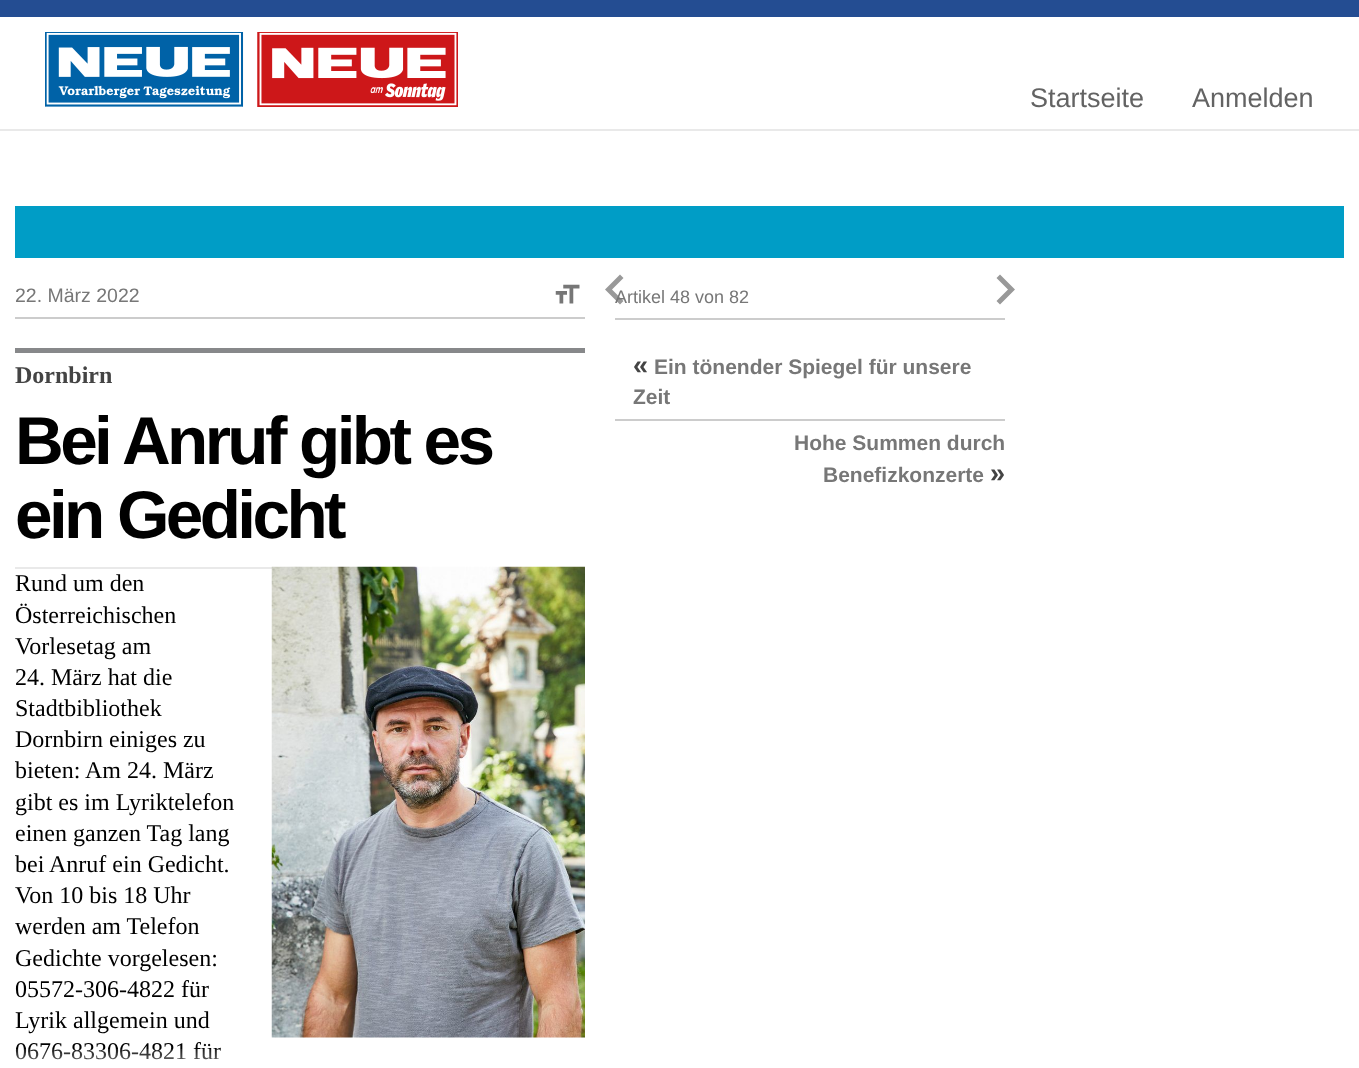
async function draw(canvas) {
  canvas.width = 1359
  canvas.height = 1068
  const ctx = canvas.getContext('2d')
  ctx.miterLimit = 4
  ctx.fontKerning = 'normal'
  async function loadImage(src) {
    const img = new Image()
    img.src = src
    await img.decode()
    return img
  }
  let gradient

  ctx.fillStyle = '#fff'
  ctx.fillRect(0, 0, 1359, 1068)
  ctx.fillStyle = '#e9e9e9'
  ctx.fillRect(0, 129, 1359, 2)
  ctx.fillStyle = '#244d92'
  ctx.fillRect(0, 0, 1359, 17)
  ctx.drawImage(await loadImage('image0.png'), 45, 32, 413, 75)
  ctx.font = '27px Liberation Sans'
  ctx.fillStyle = '#636363'
  ctx.fillText('Startseite', 1030, 107)
  ctx.fillText('Anmelden', 1192, 107)
  ctx.fillStyle = '#009dc6'
  ctx.fillRect(15, 206, 1329, 52)
  ctx.fillStyle = '#ccc'
  ctx.fillRect(15, 317, 570, 2)
  ctx.font = '19.5px Liberation Sans'
  ctx.fillStyle = '#777'
  ctx.fillText('22. März 2022', 15, 302)
  ctx.drawImage(await loadImage('image1.png'), 555, 284, 25, 20)
  ctx.fillStyle = '#e9e9e9'
  ctx.fillRect(15, 567, 257, 2)
  ctx.fillStyle = '#87888a'
  ctx.fillRect(15, 348, 570, 5)
  ctx.font = 'bold 24px Liberation Serif'
  ctx.fillStyle = '#444'
  ctx.fillText('Dornbirn', 15, 383)
  ctx.letterSpacing = '-3.6px'
  ctx.font = 'bold 67.5px Liberation Sans'
  ctx.fillStyle = '#000'
  ctx.fillText('Bei Anruf gibt es', 15, 464)
  ctx.fillText('ein Gedicht', 15, 538)
  ctx.drawImage(await loadImage('image2.png'), 271, 566, 314, 472)
  ctx.letterSpacing = '0px'
  ctx.font = '24px Liberation Serif'
  ctx.fillText('Rund um den', 15, 591)
  ctx.fillText('Österreichischen', 15, 623)
  ctx.fillText('Vorlesetag am', 15, 654)
  ctx.fillText('24. März hat die', 15, 685)
  ctx.fillText('Stadtbibliothek', 15, 716)
  ctx.fillText('Dornbirn einiges zu', 15, 747)
  ctx.fillText('bieten: Am 24. März', 15, 778)
  ctx.fillText('gibt es im Lyriktelefon', 15, 810)
  ctx.fillText('einen ganzen Tag lang', 15, 841)
  ctx.fillText('bei Anruf ein Gedicht.', 15, 872)
  ctx.fillText('Von 10 bis 18 Uhr', 15, 903)
  ctx.fillText('werden am Telefon', 15, 934)
  ctx.fillText('Gedichte vorgelesen:', 15, 966)
  ctx.fillText('05572-306-4822 für', 15, 997)
  ctx.fillText('Lyrik allgemein und', 15, 1028)
  ctx.fillText('0676-83306-4821 für', 15, 1059)
  gradient = ctx.createLinearGradient(300, 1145, 300, 1049)
  gradient.addColorStop(0.6, '#fff')
  gradient.addColorStop(1, '#ffffff1a')
  ctx.fillStyle = gradient
  ctx.fillRect(15, 1049, 206, 11)
  ctx.font = '18px Liberation Sans'
  ctx.fillStyle = '#777'
  ctx.fillText('Artikel 48 von 82', 615, 303)
  ctx.fillStyle = '#777777bf'
  ctx.beginPath()
  ctx.moveTo(623.5, 301)
  ctx.lineTo(612, 289.5)
  ctx.lineTo(623.5, 278)
  ctx.lineTo(620, 274.5)
  ctx.lineTo(605, 289.5)
  ctx.lineTo(620, 304.5)
  ctx.closePath()
  ctx.fill()
  ctx.fillStyle = '#999'
  ctx.beginPath()
  ctx.moveTo(996.5, 301)
  ctx.lineTo(1008, 289.5)
  ctx.lineTo(996.5, 278)
  ctx.lineTo(1000, 274.5)
  ctx.lineTo(1015, 289.5)
  ctx.lineTo(1000, 304.5)
  ctx.closePath()
  ctx.fill()
  ctx.fillStyle = '#ccc'
  ctx.fillRect(615, 318, 390, 2)
  ctx.fillRect(615, 419, 390, 2)
  ctx.font = 'bold 27px Liberation Sans'
  ctx.fillStyle = '#444'
  ctx.fillText('«', 633, 374)
  ctx.font = 'bold 21px Liberation Sans'
  ctx.fillStyle = '#777'
  ctx.fillText('Ein tönender Spiegel für unsere', 654, 374)
  ctx.fillText('Zeit', 633, 404)
  ctx.fillText('Hohe Summen durch', 794, 450)
  ctx.fillText('Benefizkonzerte', 823, 482)
  ctx.font = 'bold 27px Liberation Sans'
  ctx.fillStyle = '#444'
  ctx.fillText('»', 990, 482)
}

draw(document.querySelector('canvas'))
